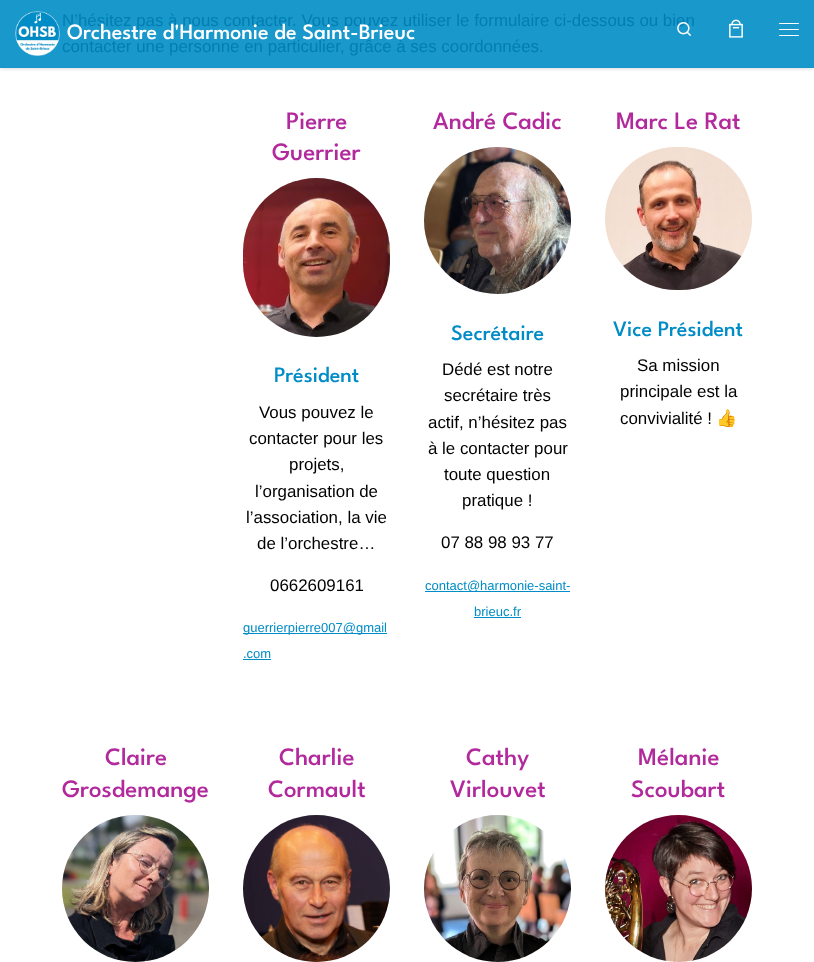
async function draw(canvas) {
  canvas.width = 814
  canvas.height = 962
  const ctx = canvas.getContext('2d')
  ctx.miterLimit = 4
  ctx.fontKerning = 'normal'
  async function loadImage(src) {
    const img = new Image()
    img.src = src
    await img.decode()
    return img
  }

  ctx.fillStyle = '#fff'
  ctx.fillRect(0, 0, 814, 962)
  ctx.fillStyle = '#1998cc'
  ctx.fillRect(0, 0, 814, 67)
  ctx.font = '16.9px Liberation Sans'
  ctx.fillStyle = '#007eb2'
  ctx.fillText('N’hésitez pas à nous contacter. Vous pouvez utiliser le formulaire ci-dessous ou bien', 62, 26)
  ctx.fillText('contacter une personne en particulier, grâce à ses coordonnées.', 62, 52)
  ctx.font = '500 25px League Spartan'
  ctx.fillStyle = '#b2299c'
  ctx.fillText('Pierre', 286, 129)
  ctx.fillText('Guerrier', 272, 160)
  ctx.drawImage(await loadImage('image0.png'), 243, 178, 147, 159)
  ctx.font = '500 22px League Spartan'
  ctx.fillStyle = '#008cc6'
  ctx.fillText('Président', 274, 382)
  ctx.font = '16.9px Liberation Sans'
  ctx.fillStyle = '#000'
  ctx.fillText('Vous pouvez le', 259, 418)
  ctx.fillText('contacter pour les', 249, 444)
  ctx.fillText('projets,', 289, 470)
  ctx.fillText('l’organisation de', 255, 497)
  ctx.fillText('l’association, la vie', 246, 523)
  ctx.fillText('de l’orchestre…', 257, 549)
  ctx.fillText('0662609161', 270, 591)
  ctx.fillStyle = '#008cc6'
  ctx.fillRect(243, 633, 144, 1)
  ctx.font = '13px Liberation Sans'
  ctx.fillText('guerrierpierre007@gmail', 243, 632)
  ctx.fillText('.com', 243, 658)
  ctx.fillRect(243, 659, 28, 1)
  ctx.font = '500 25px League Spartan'
  ctx.fillStyle = '#b2299c'
  ctx.fillText('André Cadic', 433, 129)
  ctx.drawImage(await loadImage('image1.png'), 424, 147, 147, 147)
  ctx.font = '500 22px League Spartan'
  ctx.fillStyle = '#008cc6'
  ctx.fillText('Secrétaire', 451, 340)
  ctx.font = '16.9px Liberation Sans'
  ctx.fillStyle = '#000'
  ctx.fillText('Dédé est notre', 442, 375)
  ctx.fillText('secrétaire très', 444, 401)
  ctx.fillText('actif, n’hésitez pas', 428, 428)
  ctx.fillText('à le contacter pour', 428, 454)
  ctx.fillText('toute question', 444, 480)
  ctx.fillText('pratique !', 462, 506)
  ctx.fillText('07 88 98 93 77', 441, 548)
  ctx.fillStyle = '#008cc6'
  ctx.fillRect(425, 591, 145, 1)
  ctx.font = '13px Liberation Sans'
  ctx.fillText('contact@harmonie-saint-', 425, 590)
  ctx.fillText('brieuc.fr', 474, 616)
  ctx.fillRect(474, 617, 47, 1)
  ctx.font = '500 25px League Spartan'
  ctx.fillStyle = '#b2299c'
  ctx.fillText('Marc Le Rat', 616, 129)
  ctx.drawImage(await loadImage('image2.png'), 605, 147, 147, 143)
  ctx.font = '500 22px League Spartan'
  ctx.fillStyle = '#008cc6'
  ctx.fillText('Vice Président', 613, 336)
  ctx.font = '16.9px Liberation Sans'
  ctx.fillStyle = '#000'
  ctx.fillText('Sa mission', 637, 371)
  ctx.fillText('principale est la', 620, 397)
  ctx.fillText('convivialité !', 620, 424)
  ctx.font = '16.9px Noto Color Emoji'
  ctx.fillText('👍', 716, 424)
  ctx.font = '500 25px League Spartan'
  ctx.fillStyle = '#b2299c'
  ctx.fillText('Claire', 105, 765)
  ctx.fillText('Grosdemange', 62, 797)
  ctx.drawImage(await loadImage('image3.png'), 62, 815, 147, 147)
  ctx.fillText('Charlie', 279, 765)
  ctx.fillText('Cormault', 268, 797)
  ctx.drawImage(await loadImage('image4.png'), 243, 815, 147, 147)
  ctx.fillText('Cathy', 466, 765)
  ctx.fillText('Virlouvet', 450, 797)
  ctx.drawImage(await loadImage('image5.png'), 424, 815, 147, 147)
  ctx.fillText('Mélanie', 638, 765)
  ctx.fillText('Scoubart', 631, 797)
  ctx.drawImage(await loadImage('image6.png'), 605, 815, 147, 147)
  ctx.save()
  ctx.beginPath()
  ctx.rect(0, 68, 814, 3)
  ctx.clip()
  ctx.fillStyle = '#00000033'
  ctx.filter = 'blur(2.5px)'
  ctx.beginPath()
  ctx.rect(0, 0, 814, 68)
  ctx.fill()
  ctx.filter = 'none'
  ctx.restore()
  ctx.drawImage(await loadImage('image7.png'), 15, 11, 45, 45)
  ctx.font = '500 22px League Spartan'
  ctx.fillStyle = '#fff'
  ctx.fillText('Orchestre d\'Harmonie de Saint-Brieuc', 67, 39)
  ctx.drawImage(await loadImage('image8.png'), 677, 22, 15, 14)
  ctx.drawImage(await loadImage('image9.png'), 729, 19, 14, 19)
  ctx.beginPath()
  ctx.roundRect(779, 23, 20, 1, 0.5)
  ctx.fill()
  ctx.beginPath()
  ctx.roundRect(779, 29, 20, 1, 0.5)
  ctx.fill()
  ctx.beginPath()
  ctx.roundRect(779, 35, 20, 1, 0.5)
  ctx.fill()
  ctx.fillStyle = '#1696cb'
  ctx.fillRect(0, 67, 814, 1)
}

draw(document.querySelector('canvas'))
